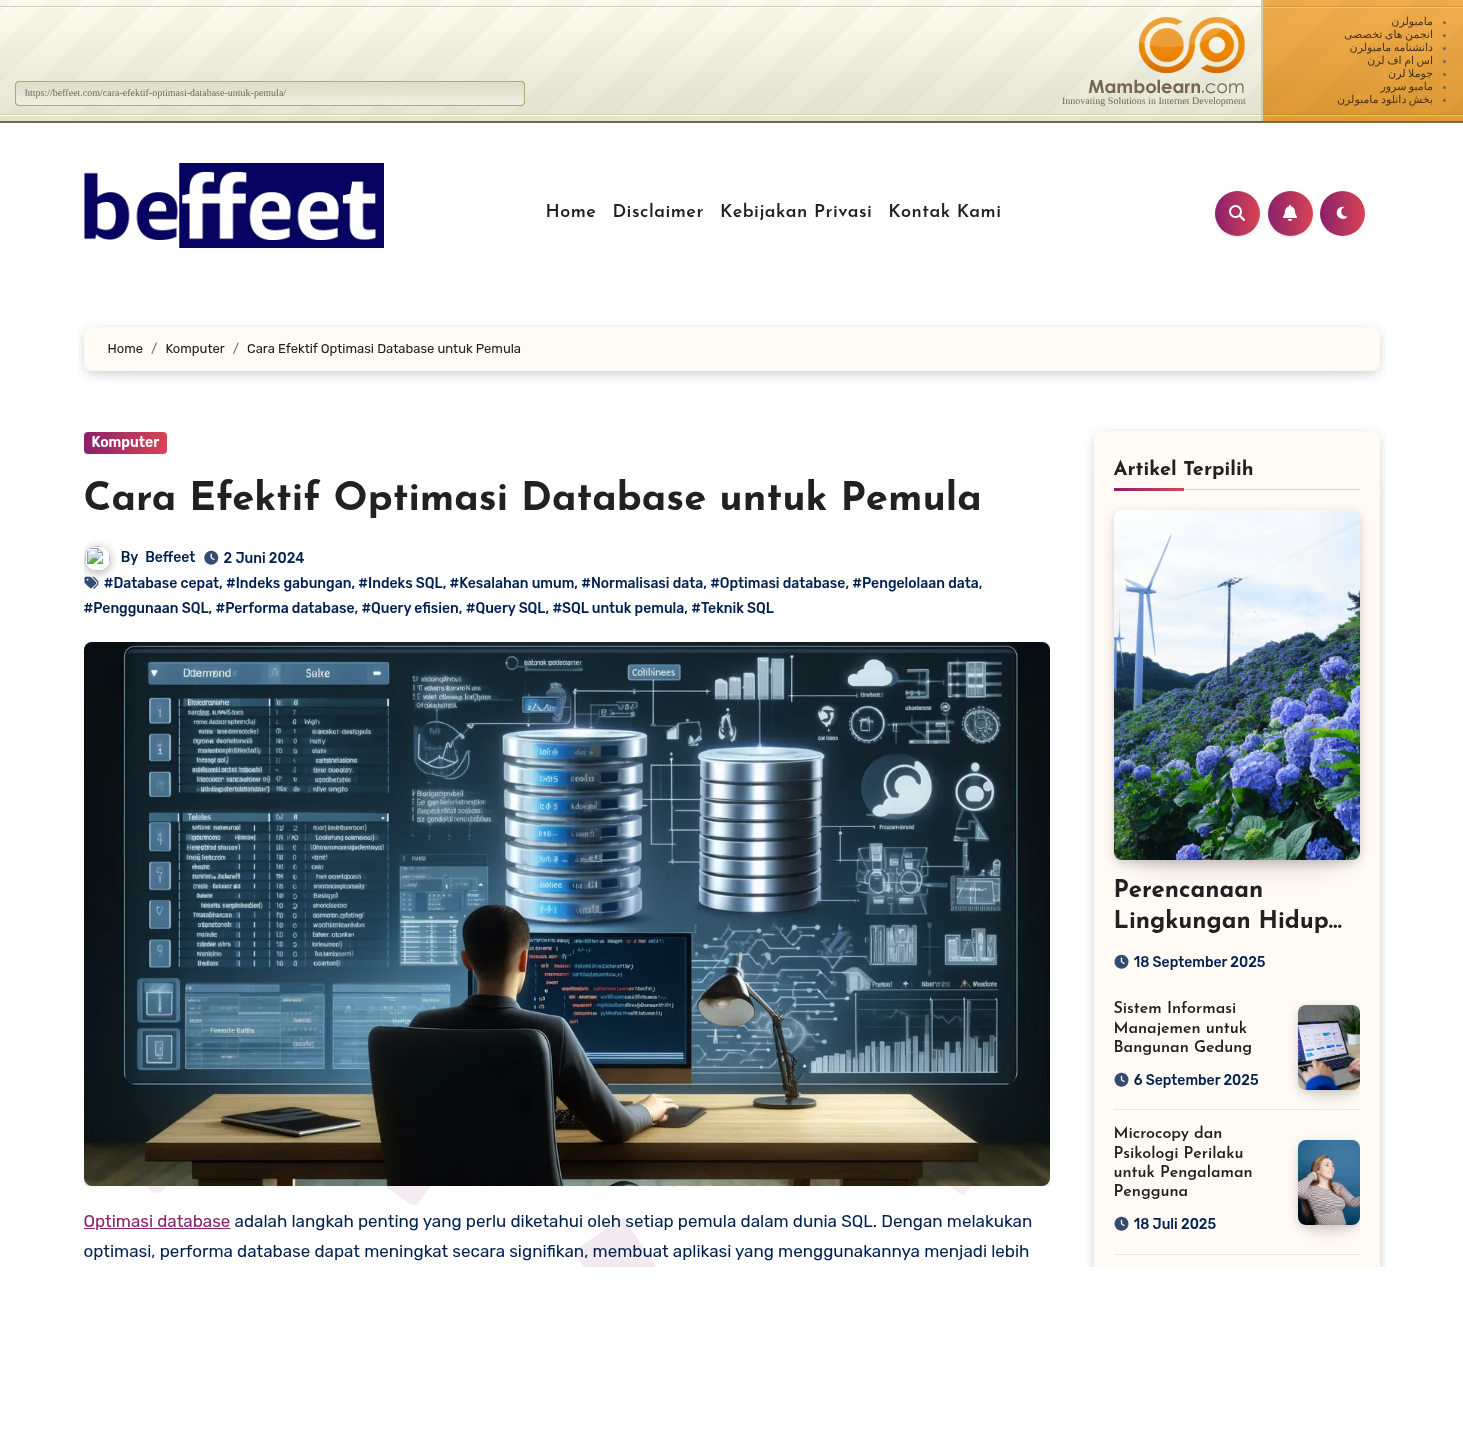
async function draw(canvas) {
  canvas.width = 1463
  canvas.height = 1430
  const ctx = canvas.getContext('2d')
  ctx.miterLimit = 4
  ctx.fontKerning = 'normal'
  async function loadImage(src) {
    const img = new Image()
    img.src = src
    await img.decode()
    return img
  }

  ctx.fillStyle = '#fff'
  ctx.fillRect(0, 0, 1463, 1430)
  ctx.fillStyle = '#6b6b4f'
  ctx.fillRect(0, 121, 1463, 2)
  ctx.drawImage(await loadImage('image0.png'), 0, 0, 1261, 121)
  ctx.fillStyle = '#ceceb2'
  ctx.fillRect(1261, 0, 2, 121)
  ctx.drawImage(await loadImage('image1.png'), 15, 81, 510, 25)
  ctx.font = '10px Liberation Serif'
  ctx.fillStyle = '#746652'
  ctx.fillText('https://beffeet.com/cara-efektif-optimasi-database-untuk-pemula/', 25, 96)
  ctx.drawImage(await loadImage('image2.png'), 1088, 16, 157, 78)
  ctx.fillText('Innovating Solutions in Internet Development', 1062, 104)
  ctx.drawImage(await loadImage('image3.png'), 1263, 0, 200, 121)
  ctx.direction = 'rtl'
  ctx.font = '11px DejaVu Sans'
  ctx.fillStyle = '#473217'
  ctx.fillText('مامبولرن', 1433, 25)
  ctx.fillStyle = '#746652'
  ctx.beginPath()
  ctx.arc(1444.5, 22.5, 1.5, 0, 2 * Math.PI)
  ctx.fill()
  ctx.wordSpacing = '-1px'
  ctx.fillStyle = '#473217'
  ctx.fillText('انجمن های تخصصی', 1433, 38)
  ctx.fillStyle = '#746652'
  ctx.beginPath()
  ctx.arc(1444.5, 35.5, 1.5, 0, 2 * Math.PI)
  ctx.fill()
  ctx.fillStyle = '#473217'
  ctx.fillText('دانشنامه مامبولرن', 1433, 51)
  ctx.fillStyle = '#746652'
  ctx.beginPath()
  ctx.arc(1444.5, 48.5, 1.5, 0, 2 * Math.PI)
  ctx.fill()
  ctx.fillStyle = '#473217'
  ctx.fillText('اس ام اف لرن', 1433, 64)
  ctx.fillStyle = '#746652'
  ctx.beginPath()
  ctx.arc(1444.5, 61.5, 1.5, 0, 2 * Math.PI)
  ctx.fill()
  ctx.fillStyle = '#473217'
  ctx.fillText('جوملا لرن', 1433, 77)
  ctx.fillStyle = '#746652'
  ctx.beginPath()
  ctx.arc(1444.5, 74.5, 1.5, 0, 2 * Math.PI)
  ctx.fill()
  ctx.fillStyle = '#473217'
  ctx.fillText('مامبو سرور', 1433, 90)
  ctx.fillStyle = '#746652'
  ctx.beginPath()
  ctx.arc(1444.5, 87.5, 1.5, 0, 2 * Math.PI)
  ctx.fill()
  ctx.fillStyle = '#473217'
  ctx.fillText('بخش دانلود مامبولرن', 1433, 103)
  ctx.fillStyle = '#746652'
  ctx.beginPath()
  ctx.arc(1444.5, 100.5, 1.5, 0, 2 * Math.PI)
  ctx.fill()
  ctx.drawImage(await loadImage('image4.png'), 78, 163, 1308, 1104)
}

draw(document.querySelector('canvas'))
